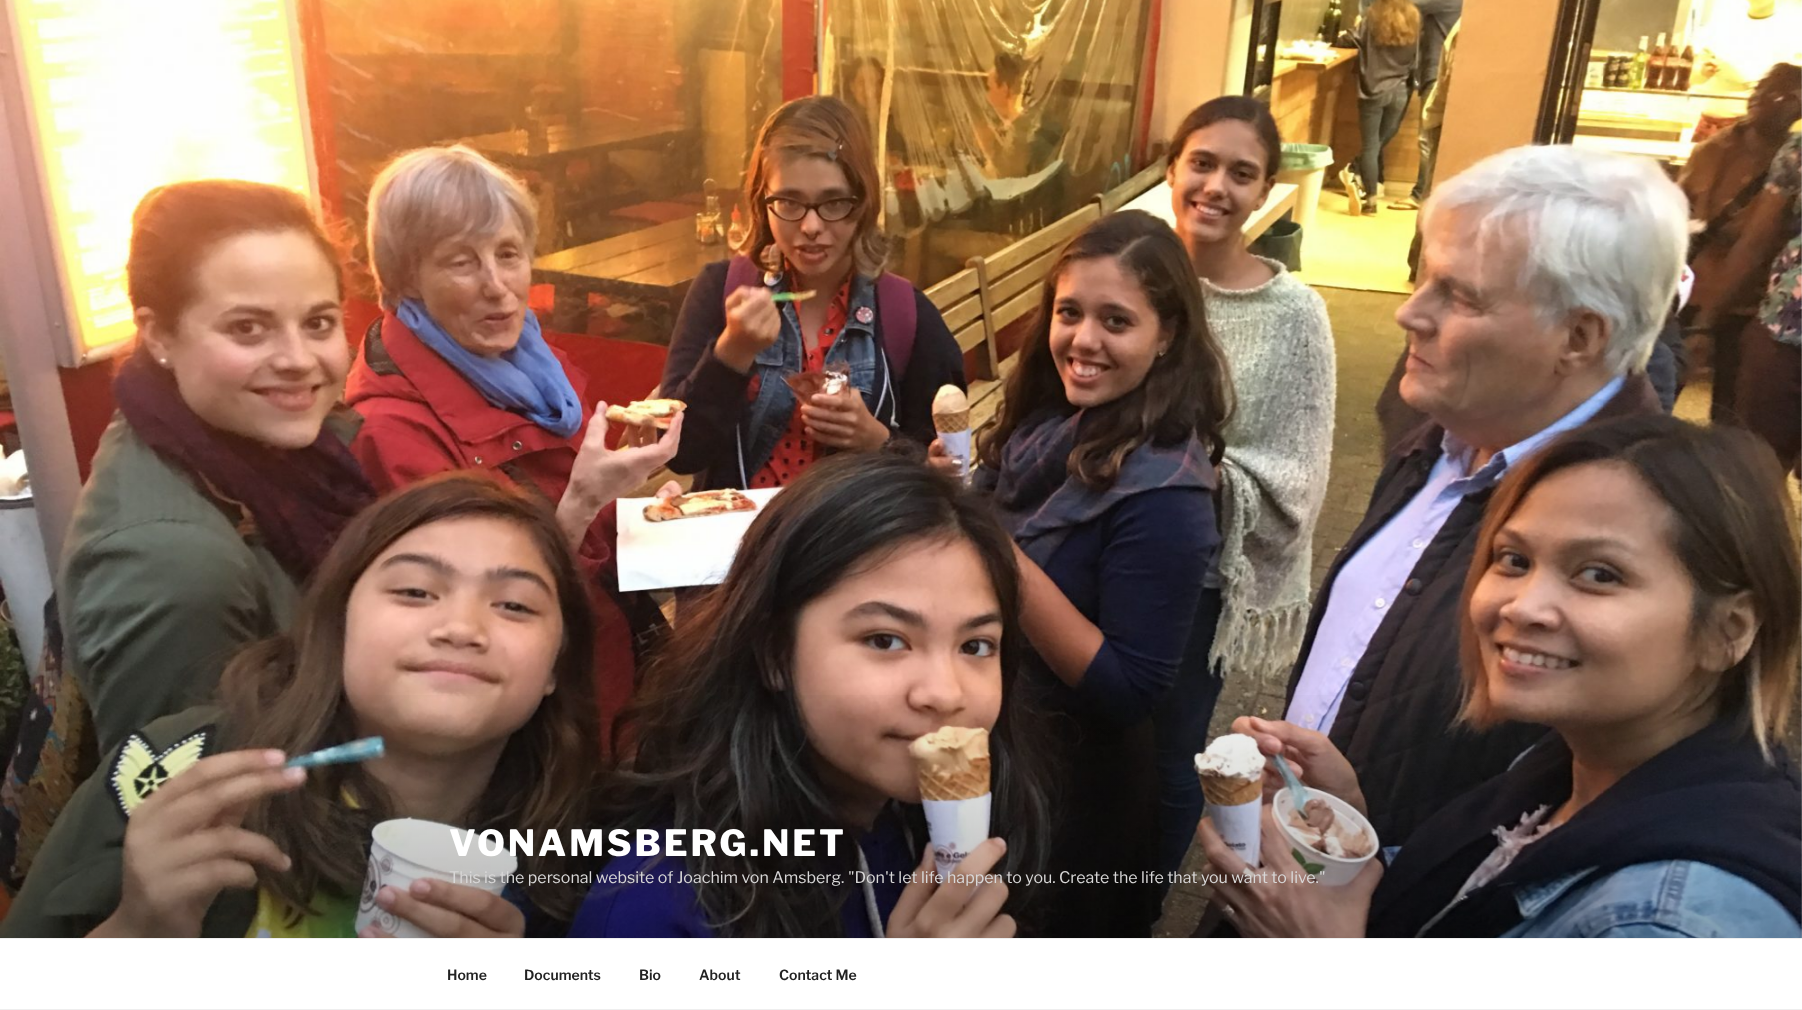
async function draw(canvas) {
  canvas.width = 1802
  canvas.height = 1010
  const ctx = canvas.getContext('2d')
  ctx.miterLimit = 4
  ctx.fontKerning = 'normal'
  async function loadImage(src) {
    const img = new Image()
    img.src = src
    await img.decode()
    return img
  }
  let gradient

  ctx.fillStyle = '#fff'
  ctx.fillRect(0, 0, 1802, 1010)
  ctx.drawImage(await loadImage('image0.png'), 0, 0, 1802, 938)
  gradient = ctx.createLinearGradient(901, 677, 901, 1010)
  gradient.addColorStop(0, '#00000000')
  gradient.addColorStop(0.75, '#0000004d')
  gradient.addColorStop(1, '#0000004d')
  ctx.fillStyle = gradient
  ctx.fillRect(0, 695, 1802, 243)
  ctx.letterSpacing = '2.9px'
  ctx.font = '100 36px Libre Franklin'
  ctx.fillStyle = '#fff'
  ctx.fillText('VONAMSBERG.NET', 449, 856)
  ctx.letterSpacing = '0px'
  ctx.font = '100 16px "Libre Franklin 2"'
  ctx.fillStyle = '#d8d7d7'
  ctx.fillText('This is the personal website of Joachim von Amsberg. "Don\'t let life happen to you. Create the life that you want to live."', 449, 883)
  ctx.fillStyle = '#eee'
  ctx.fillRect(0, 938, 1802, 1)
  ctx.fillRect(0, 1009, 1802, 1)
  ctx.font = '100 14px "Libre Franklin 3"'
  ctx.fillStyle = '#222'
  ctx.fillText('Home', 447, 980)
  ctx.fillText('Documents', 524, 980)
  ctx.fillText('Bio', 639, 980)
  ctx.fillText('About', 699, 980)
  ctx.fillText('Contact Me', 779, 980)
}

draw(document.querySelector('canvas'))
